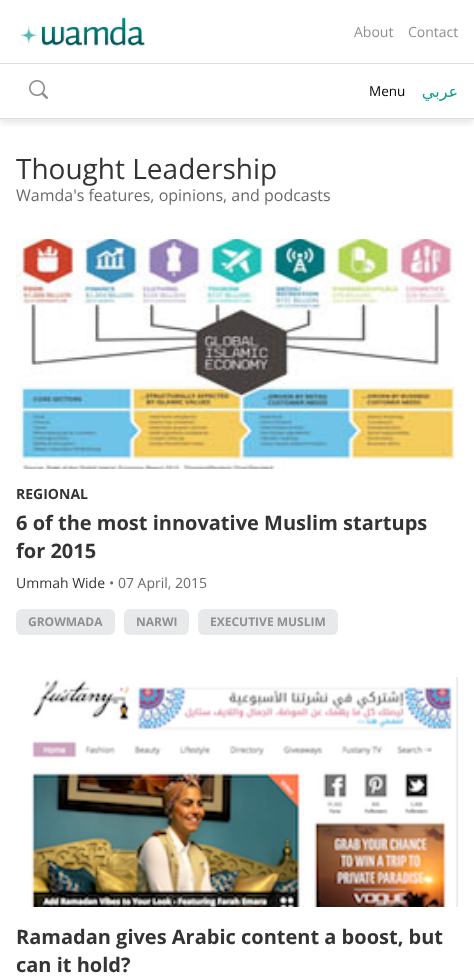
async function draw(canvas) {
  canvas.width = 474
  canvas.height = 977
  const ctx = canvas.getContext('2d')
  ctx.miterLimit = 4
  ctx.fontKerning = 'normal'
  async function loadImage(src) {
    const img = new Image()
    img.src = src
    await img.decode()
    return img
  }

  ctx.fillStyle = '#fff'
  ctx.fillRect(0, 0, 474, 977)
  ctx.save()
  ctx.beginPath()
  ctx.rect(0, 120, 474, 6)
  ctx.clip()
  ctx.fillStyle = '#0000001a'
  ctx.filter = 'blur(3.5px)'
  ctx.beginPath()
  ctx.rect(0, 3, 474, 120)
  ctx.fill()
  ctx.filter = 'none'
  ctx.restore()
  ctx.fillStyle = '#eee'
  ctx.fillRect(0, 119, 474, 1)
  ctx.drawImage(await loadImage('image0.png'), 19, 17, 126, 29)
  ctx.font = '14px Open Sans'
  ctx.fillStyle = '#8e9091'
  ctx.fillText('About', 354, 37)
  ctx.fillText('Contact', 408, 37)
  ctx.fillStyle = '#ddd'
  ctx.fillRect(0, 63, 474, 1)
  ctx.fillRect(0, 118, 474, 1)
  ctx.drawImage(await loadImage('image1.png'), 29, 80, 19, 19)
  ctx.font = '13.5px Open Sans'
  ctx.fillStyle = '#000'
  ctx.fillText('Menu', 369, 96)
  ctx.direction = 'rtl'
  ctx.font = '16px DejaVu Sans'
  ctx.fillStyle = '#0b9f8e'
  ctx.fillText('عربي', 458, 97)
  ctx.direction = 'ltr'
  ctx.font = '28px Open Sans'
  ctx.fillStyle = '#343434'
  ctx.fillText('Thought Leadership', 16, 179)
  ctx.font = '16px Open Sans'
  ctx.fillStyle = '#676a6c'
  ctx.fillText('Wamda\'s features, opinions, and podcasts', 16, 201)
  ctx.drawImage(await loadImage('image2.png'), 16, 239, 439, 230)
  ctx.font = 'bold 14px Open Sans'
  ctx.fillStyle = '#343434'
  ctx.fillText('REGIONAL', 16, 499)
  ctx.font = 'bold 20px Open Sans'
  ctx.fillText('6 of the most innovative Muslim startups', 16, 530)
  ctx.fillText('for 2015', 16, 558)
  ctx.font = '14px Open Sans'
  ctx.fillText('Ummah Wide', 16, 588)
  ctx.fillStyle = '#676a6c'
  ctx.fillText('• 07 April, 2015', 109, 588)
  ctx.fillStyle = '#e7e9ea'
  ctx.beginPath()
  ctx.roundRect(16, 609, 99, 26, 6)
  ctx.fill()
  ctx.font = 'bold 12px Open Sans'
  ctx.fillStyle = '#8e9091'
  ctx.fillText('GROWMADA', 28, 626)
  ctx.fillStyle = '#e7e9ea'
  ctx.beginPath()
  ctx.roundRect(124, 609, 65, 26, 6)
  ctx.fill()
  ctx.fillStyle = '#8e9091'
  ctx.fillText('NARWI', 136, 626)
  ctx.fillStyle = '#e7e9ea'
  ctx.beginPath()
  ctx.roundRect(198, 609, 140, 26, 6)
  ctx.fill()
  ctx.fillStyle = '#8e9091'
  ctx.fillText('EXECUTIVE MUSLIM', 210, 626)
  ctx.drawImage(await loadImage('image3.png'), 31, 677, 427, 230)
  ctx.font = 'bold 20px Open Sans'
  ctx.fillStyle = '#343434'
  ctx.fillText('Ramadan gives Arabic content a boost, but', 16, 944)
  ctx.fillText('can it hold?', 16, 972)
}

draw(document.querySelector('canvas'))
